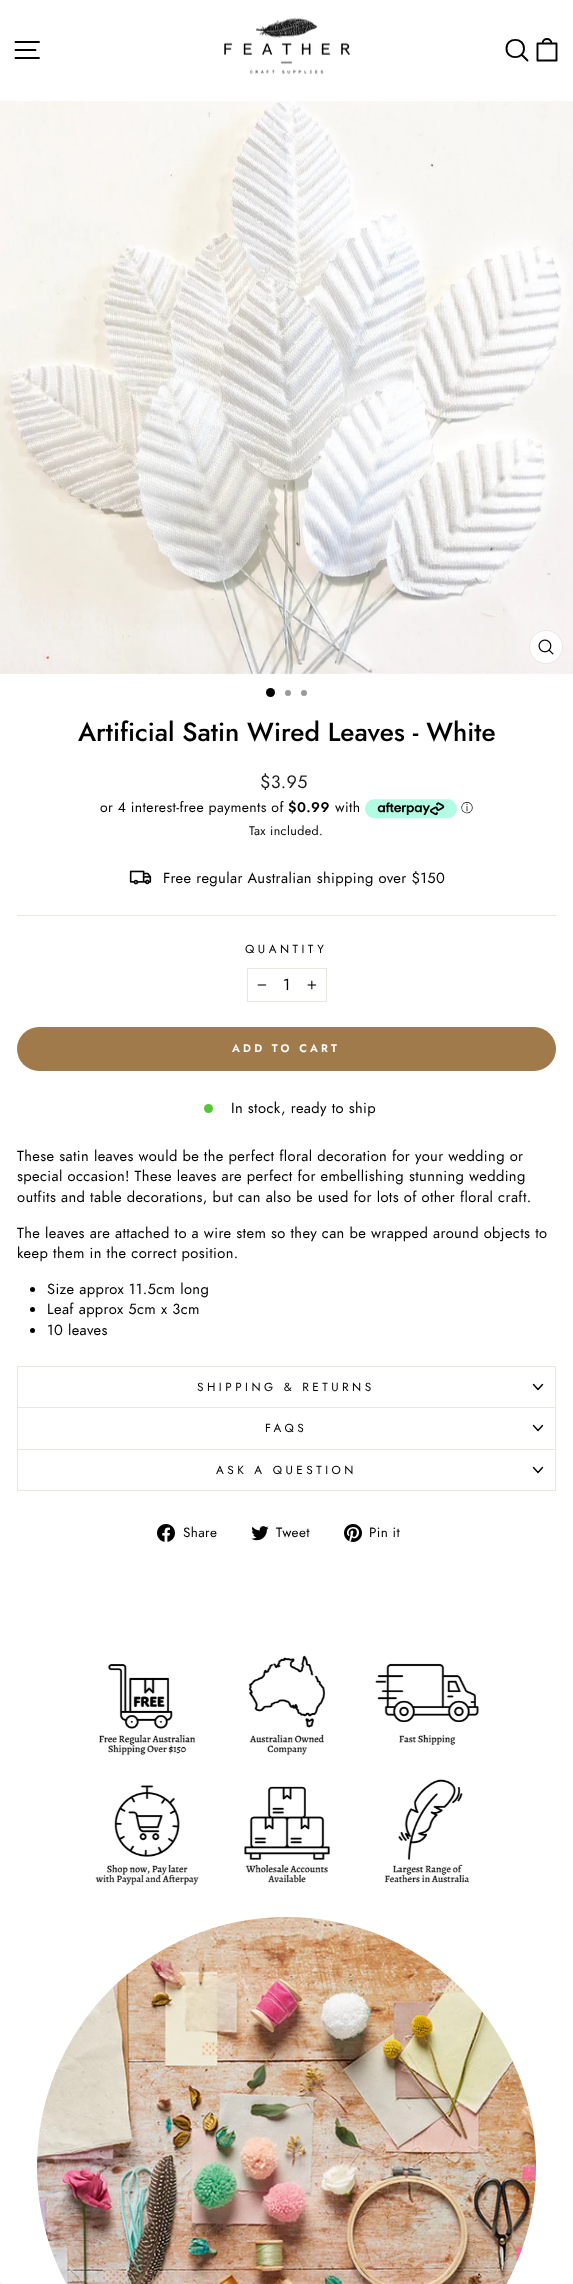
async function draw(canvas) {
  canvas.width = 573
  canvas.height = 2284
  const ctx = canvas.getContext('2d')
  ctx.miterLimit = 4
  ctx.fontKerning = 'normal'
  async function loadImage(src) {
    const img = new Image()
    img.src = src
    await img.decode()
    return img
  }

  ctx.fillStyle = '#fff'
  ctx.fillRect(0, 0, 573, 2284)
  ctx.beginPath()
  ctx.moveTo(15.5, 42)
  ctx.lineTo(39, 42)
  ctx.moveTo(15.5, 50)
  ctx.lineTo(35.5, 50)
  ctx.moveTo(15.5, 58)
  ctx.lineTo(39, 58)
  ctx.strokeStyle = '#000'
  ctx.lineWidth = 1.9
  ctx.lineCap = 'round'
  ctx.lineJoin = 'round'
  ctx.stroke()
  ctx.drawImage(await loadImage('image0.png'), 224, 17, 126, 57)
  ctx.beginPath()
  ctx.moveTo(524, 48.5)
  ctx.bezierCurveTo(524, 60, 506.5, 60, 506.5, 48.5)
  ctx.bezierCurveTo(506.5, 37, 524, 37, 524, 48.5)
  ctx.closePath()
  ctx.moveTo(527.5, 60.5)
  ctx.lineTo(521.5, 54.5)
  ctx.moveTo(537.5, 43.5)
  ctx.lineTo(556.5, 43.5)
  ctx.lineTo(556.5, 60.5)
  ctx.lineTo(537.5, 60.5)
  ctx.closePath()
  ctx.moveTo(542.5, 43.5)
  ctx.bezierCurveTo(542.5, 37.5, 551.5, 37.5, 551.5, 43.5)
  ctx.stroke()
  ctx.drawImage(await loadImage('image1.png'), 0, 101, 573, 573)
  ctx.beginPath()
  ctx.arc(546, 647, 16.5, 0, 2 * Math.PI)
  ctx.fill()
  ctx.strokeStyle = '#e8e8e1'
  ctx.lineWidth = 1
  ctx.stroke()
  ctx.drawImage(await loadImage('image2.png'), 538, 639, 16, 16)
  ctx.fillStyle = '#000'
  ctx.beginPath()
  ctx.arc(270.5, 692.5, 4.5, 0, 2 * Math.PI)
  ctx.fill()
  ctx.fillStyle = '#999'
  ctx.beginPath()
  ctx.arc(288, 693, 3, 0, 2 * Math.PI)
  ctx.fill()
  ctx.beginPath()
  ctx.arc(304, 693, 3, 0, 2 * Math.PI)
  ctx.fill()
  ctx.font = '500 26.25px Jost'
  ctx.fillStyle = '#000'
  ctx.fillText('Artificial Satin Wired Leaves - White', 78, 741)
  ctx.letterSpacing = '0.37px'
  ctx.font = '18px Jost'
  ctx.fillStyle = '#1c1d1d'
  ctx.fillText('$3.95', 260, 788)
  ctx.font = '14px Jost'
  ctx.fillStyle = '#000'
  ctx.fillText('or 4 interest-free payments of', 100, 812)
  ctx.font = '600 14px Jost'
  ctx.fillText('$0.99', 288, 812)
  ctx.font = '14px Jost'
  ctx.fillText('with', 335, 812)
  ctx.drawImage(await loadImage('image3.png'), 365, 799, 92, 20)
  ctx.letterSpacing = '0px'
  ctx.font = '500 12px WenQuanYi Zen Hei'
  ctx.fillText('ⓘ', 461, 812)
  ctx.letterSpacing = '0.37px'
  ctx.font = '12.5px Jost'
  ctx.fillText('Tax included.', 249, 835)
  ctx.drawImage(await loadImage('image4.png'), 129, 870, 23, 15)
  ctx.font = '14.7px Jost'
  ctx.fillText('Free regular Australian shipping over $150', 163, 883)
  ctx.fillStyle = '#e8e8e1'
  ctx.fillRect(17, 915, 539, 1)
  ctx.letterSpacing = '3.5px'
  ctx.font = '11.75px Jost'
  ctx.fillStyle = '#000'
  ctx.fillText('QUANTITY', 245, 953)
  ctx.lineJoin = 'miter'
  ctx.strokeRect(247.5, 968.5, 79, 33)
  ctx.drawImage(await loadImage('image5.png'), 257, 984, 10, 2)
  ctx.letterSpacing = '0px'
  ctx.font = '16px Jost'
  ctx.fillText('1', 283, 990)
  ctx.drawImage(await loadImage('image6.png'), 307, 980, 10, 10)
  ctx.fillStyle = '#a17a4c'
  ctx.beginPath()
  ctx.roundRect(17, 1027, 539, 44, 22)
  ctx.fill()
  ctx.letterSpacing = '3.25px'
  ctx.font = '600 11px Jost'
  ctx.fillStyle = '#fff'
  ctx.fillText('ADD TO CART', 232, 1052)
  ctx.fillStyle = '#54c63a'
  ctx.beginPath()
  ctx.arc(208.5, 1108.5, 4.5, 0, 2 * Math.PI)
  ctx.fill()
  ctx.letterSpacing = '0.37px'
  ctx.font = '14.7px Jost'
  ctx.fillStyle = '#000'
  ctx.fillText('In stock, ready to ship', 231, 1113)
  ctx.fillText('These satin leaves would be the perfect floral decoration for your wedding or', 17, 1161)
  ctx.fillText('special occasion! These leaves are perfect for embellishing stunning wedding', 17, 1181)
  ctx.fillText('outfits and table decorations, but can also be used for lots of other floral craft.', 17, 1202)
  ctx.fillText('The leaves are attached to a wire stem so they can be wrapped around objects to', 17, 1238)
  ctx.fillText('keep them in the correct position.', 17, 1258)
  ctx.beginPath()
  ctx.arc(32.5, 1289.5, 2.5, 0, 2 * Math.PI)
  ctx.fill()
  ctx.fillText('Size approx 11.5cm long', 47, 1294)
  ctx.beginPath()
  ctx.arc(32.5, 1309.5, 2.5, 0, 2 * Math.PI)
  ctx.fill()
  ctx.fillText('Leaf approx 5cm x 3cm', 47, 1314)
  ctx.beginPath()
  ctx.arc(32.5, 1330.5, 2.5, 0, 2 * Math.PI)
  ctx.fill()
  ctx.fillText('10 leaves', 47, 1335)
  ctx.fillStyle = '#e8e8e1'
  ctx.fillRect(17, 1407, 539, 1)
  ctx.fillRect(17, 1366, 539, 1)
  ctx.fillRect(555, 1366, 1, 41)
  ctx.fillRect(17, 1366, 1, 41)
  ctx.letterSpacing = '3.5px'
  ctx.font = '11.75px Jost'
  ctx.fillStyle = '#000'
  ctx.fillText('SHIPPING & RETURNS', 197, 1391)
  ctx.beginPath()
  ctx.moveTo(533.5, 1384.5)
  ctx.lineTo(538, 1389.5)
  ctx.lineTo(542.5, 1384.5)
  ctx.strokeStyle = '#000'
  ctx.lineWidth = 1.4
  ctx.lineJoin = 'round'
  ctx.stroke()
  ctx.fillStyle = '#e8e8e1'
  ctx.fillRect(17, 1449, 539, 1)
  ctx.fillRect(555, 1408, 1, 41)
  ctx.fillRect(17, 1408, 1, 41)
  ctx.fillStyle = '#000'
  ctx.fillText('FAQS', 265, 1432)
  ctx.beginPath()
  ctx.moveTo(533.5, 1425.5)
  ctx.lineTo(538, 1430.5)
  ctx.lineTo(542.5, 1425.5)
  ctx.stroke()
  ctx.fillStyle = '#e8e8e1'
  ctx.fillRect(17, 1490, 539, 1)
  ctx.fillRect(555, 1450, 1, 40)
  ctx.fillRect(17, 1450, 1, 40)
  ctx.fillStyle = '#000'
  ctx.fillText('ASK A QUESTION', 216, 1474)
  ctx.beginPath()
  ctx.moveTo(533.5, 1467.5)
  ctx.lineTo(538, 1472.5)
  ctx.lineTo(542.5, 1467.5)
  ctx.stroke()
  ctx.drawImage(await loadImage('image7.png'), 157, 1524, 18, 18)
  ctx.letterSpacing = '0.37px'
  ctx.font = '13.5px Jost'
  ctx.fillText('Share', 183, 1537)
  ctx.drawImage(await loadImage('image8.png'), 251, 1526, 18, 15)
  ctx.fillText('Tweet', 276, 1537)
  ctx.drawImage(await loadImage('image9.png'), 344, 1524, 18, 18)
  ctx.fillText('Pin it', 369, 1537)
  ctx.drawImage(await loadImage('image10.png'), 99, 1664, 97, 91)
  ctx.drawImage(await loadImage('image11.png'), 248, 1655, 78, 100)
  ctx.drawImage(await loadImage('image12.png'), 375, 1663, 104, 82)
  ctx.drawImage(await loadImage('image13.png'), 95, 1785, 104, 100)
  ctx.drawImage(await loadImage('image14.png'), 244, 1786, 86, 97)
  ctx.drawImage(await loadImage('image15.png'), 384, 1779, 86, 104)
  ctx.drawImage(await loadImage('image16.png'), 37, 1917, 499, 367)
  ctx.fillStyle = '#f5f5f5'
  ctx.fillRect(0, 2282, 2, 2)
}

draw(document.querySelector('canvas'))
